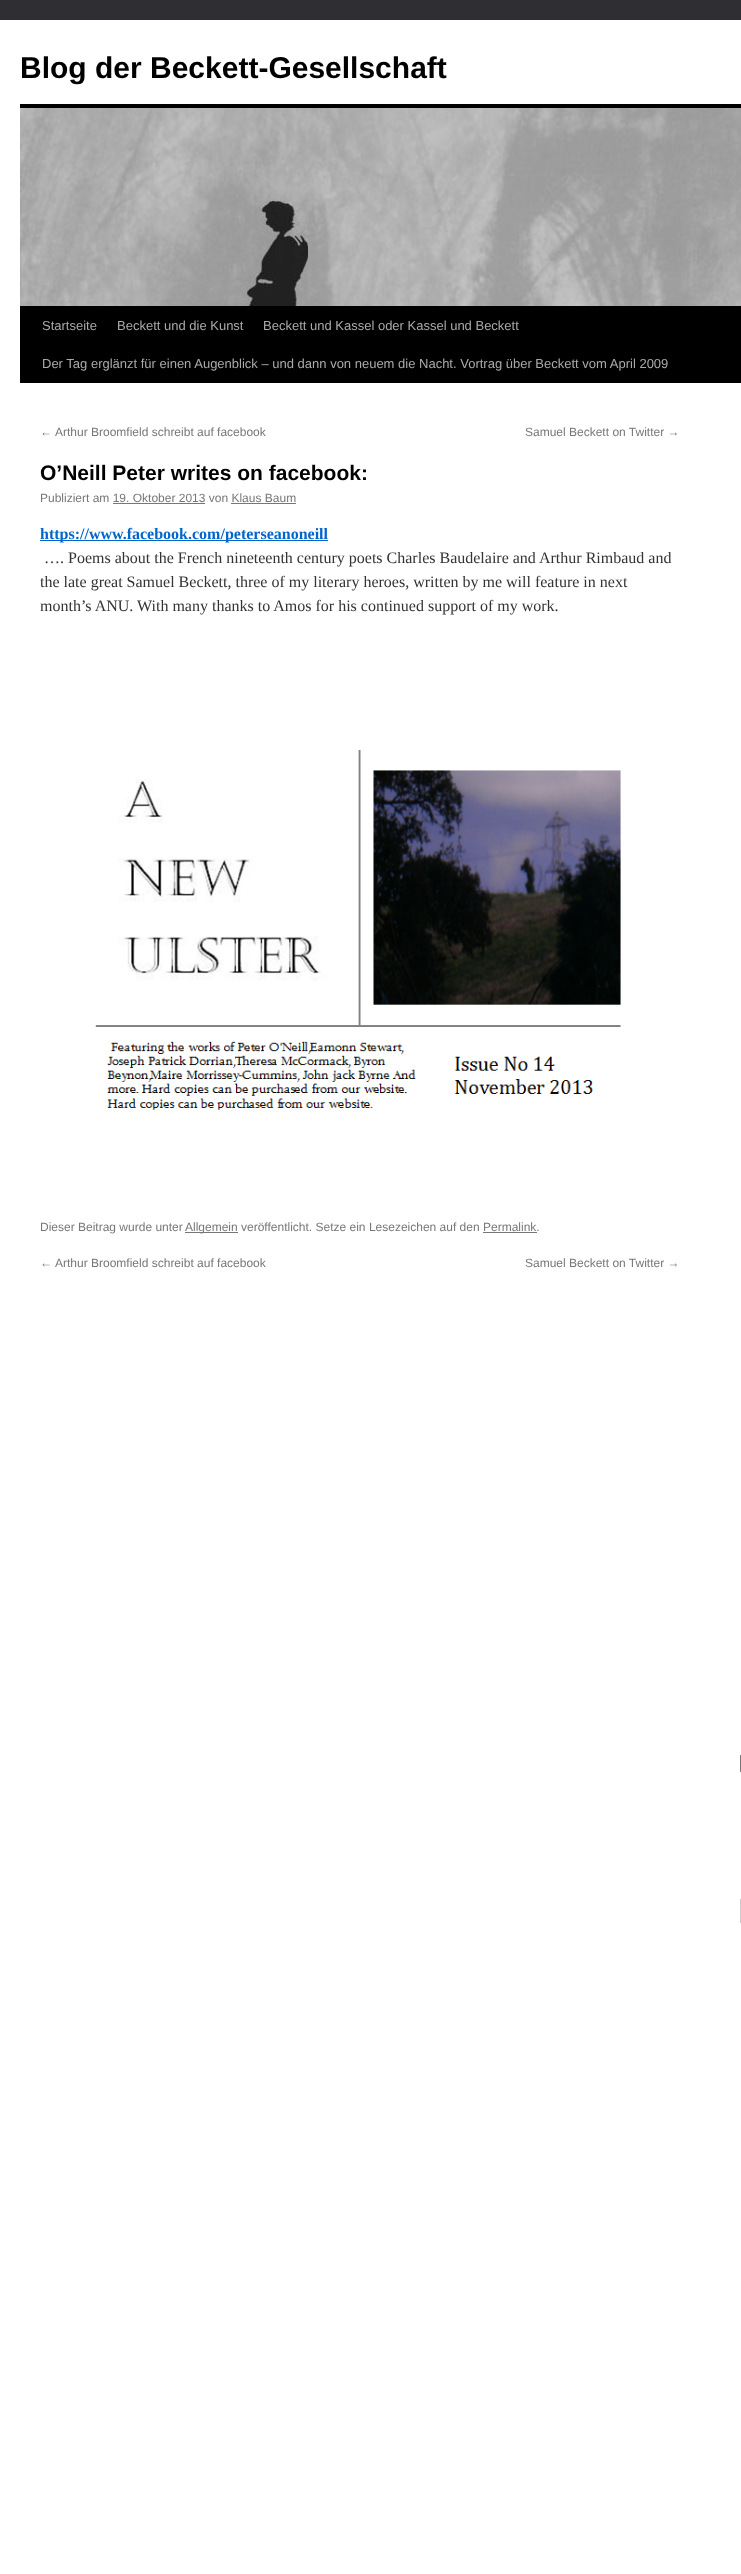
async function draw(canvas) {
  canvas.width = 741
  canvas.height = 2574
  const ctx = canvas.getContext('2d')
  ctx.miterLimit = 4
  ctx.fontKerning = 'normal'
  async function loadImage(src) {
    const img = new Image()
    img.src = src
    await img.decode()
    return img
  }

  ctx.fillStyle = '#2f2e33'
  ctx.fillRect(0, 0, 741, 2574)
  ctx.fillStyle = '#fff'
  ctx.fillRect(0, 20, 741, 2554)
  ctx.font = 'bold 30px Liberation Sans'
  ctx.fillStyle = '#000'
  ctx.fillText('Blog der Beckett-Gesellschaft', 20, 78)
  ctx.fillRect(20, 104, 721, 4)
  ctx.fillRect(20, 306, 721, 77)
  ctx.drawImage(await loadImage('image0.png'), 20, 108, 721, 198)
  ctx.font = '13px Liberation Sans'
  ctx.fillStyle = '#aaa'
  ctx.fillText('Startseite', 42, 330)
  ctx.fillText('Beckett und die Kunst', 117, 330)
  ctx.fillText('Beckett und Kassel oder Kassel und Beckett', 263, 330)
  ctx.fillText('Der Tag erglänzt für einen Augenblick – und dann von neuem die Nacht. Vortrag über Beckett vom April 2009', 42, 368)
  ctx.font = '12px Liberation Sans'
  ctx.fillStyle = '#777'
  ctx.fillText('←', 40, 436)
  ctx.fillText('Arthur Broomfield schreibt auf facebook', 55, 436)
  ctx.fillText('Samuel Beckett on Twitter →', 525, 436)
  ctx.font = 'bold 21px Liberation Sans'
  ctx.fillStyle = '#000'
  ctx.fillText('O’Neill Peter writes on facebook:', 40, 480)
  ctx.font = '12px Liberation Sans'
  ctx.fillStyle = '#777'
  ctx.fillText('Publiziert am 19. Oktober 2013 von Klaus Baum', 40, 502)
  ctx.fillRect(113, 503, 92, 1)
  ctx.fillRect(231, 503, 65, 1)
  ctx.fillStyle = '#06c'
  ctx.fillRect(40, 540, 288, 1)
  ctx.font = 'bold 16px Liberation Serif'
  ctx.fillText('https://www.facebook.com/peterseanoneill', 40, 539)
  ctx.font = '16px Liberation Serif'
  ctx.fillStyle = '#333'
  ctx.fillText('…. Poems about the French nineteenth century poets Charles Baudelaire and Arthur Rimbaud and', 44, 563)
  ctx.fillText('the late great Samuel Beckett, three of my literary heroes, written by me will feature in next', 40, 587)
  ctx.fillText('month’s ANU. With many thanks to Amos for his continued support of my work.', 40, 611)
  ctx.drawImage(await loadImage('image1.png'), 95, 750, 526, 360)
  ctx.font = '12px Liberation Sans'
  ctx.fillStyle = '#777'
  ctx.fillText('Dieser Beitrag wurde unter', 40, 1231)
  ctx.fillRect(185, 1232, 53, 1)
  ctx.fillText('Allgemein veröffentlicht. Setze ein Lesezeichen auf den Permalink.', 185, 1231)
  ctx.fillRect(483, 1232, 54, 1)
  ctx.fillText('←', 40, 1267)
  ctx.fillText('Arthur Broomfield schreibt auf facebook', 55, 1267)
  ctx.fillText('Samuel Beckett on Twitter →', 525, 1267)
  ctx.beginPath()
  ctx.roundRect(740.5, 1754.5, 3, 18, 1.5)
  ctx.strokeStyle = '#767676'
  ctx.stroke()
  ctx.strokeStyle = '#ccc'
  ctx.strokeRect(740.5, 1899.5, 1, 23)
}

draw(document.querySelector('canvas'))
